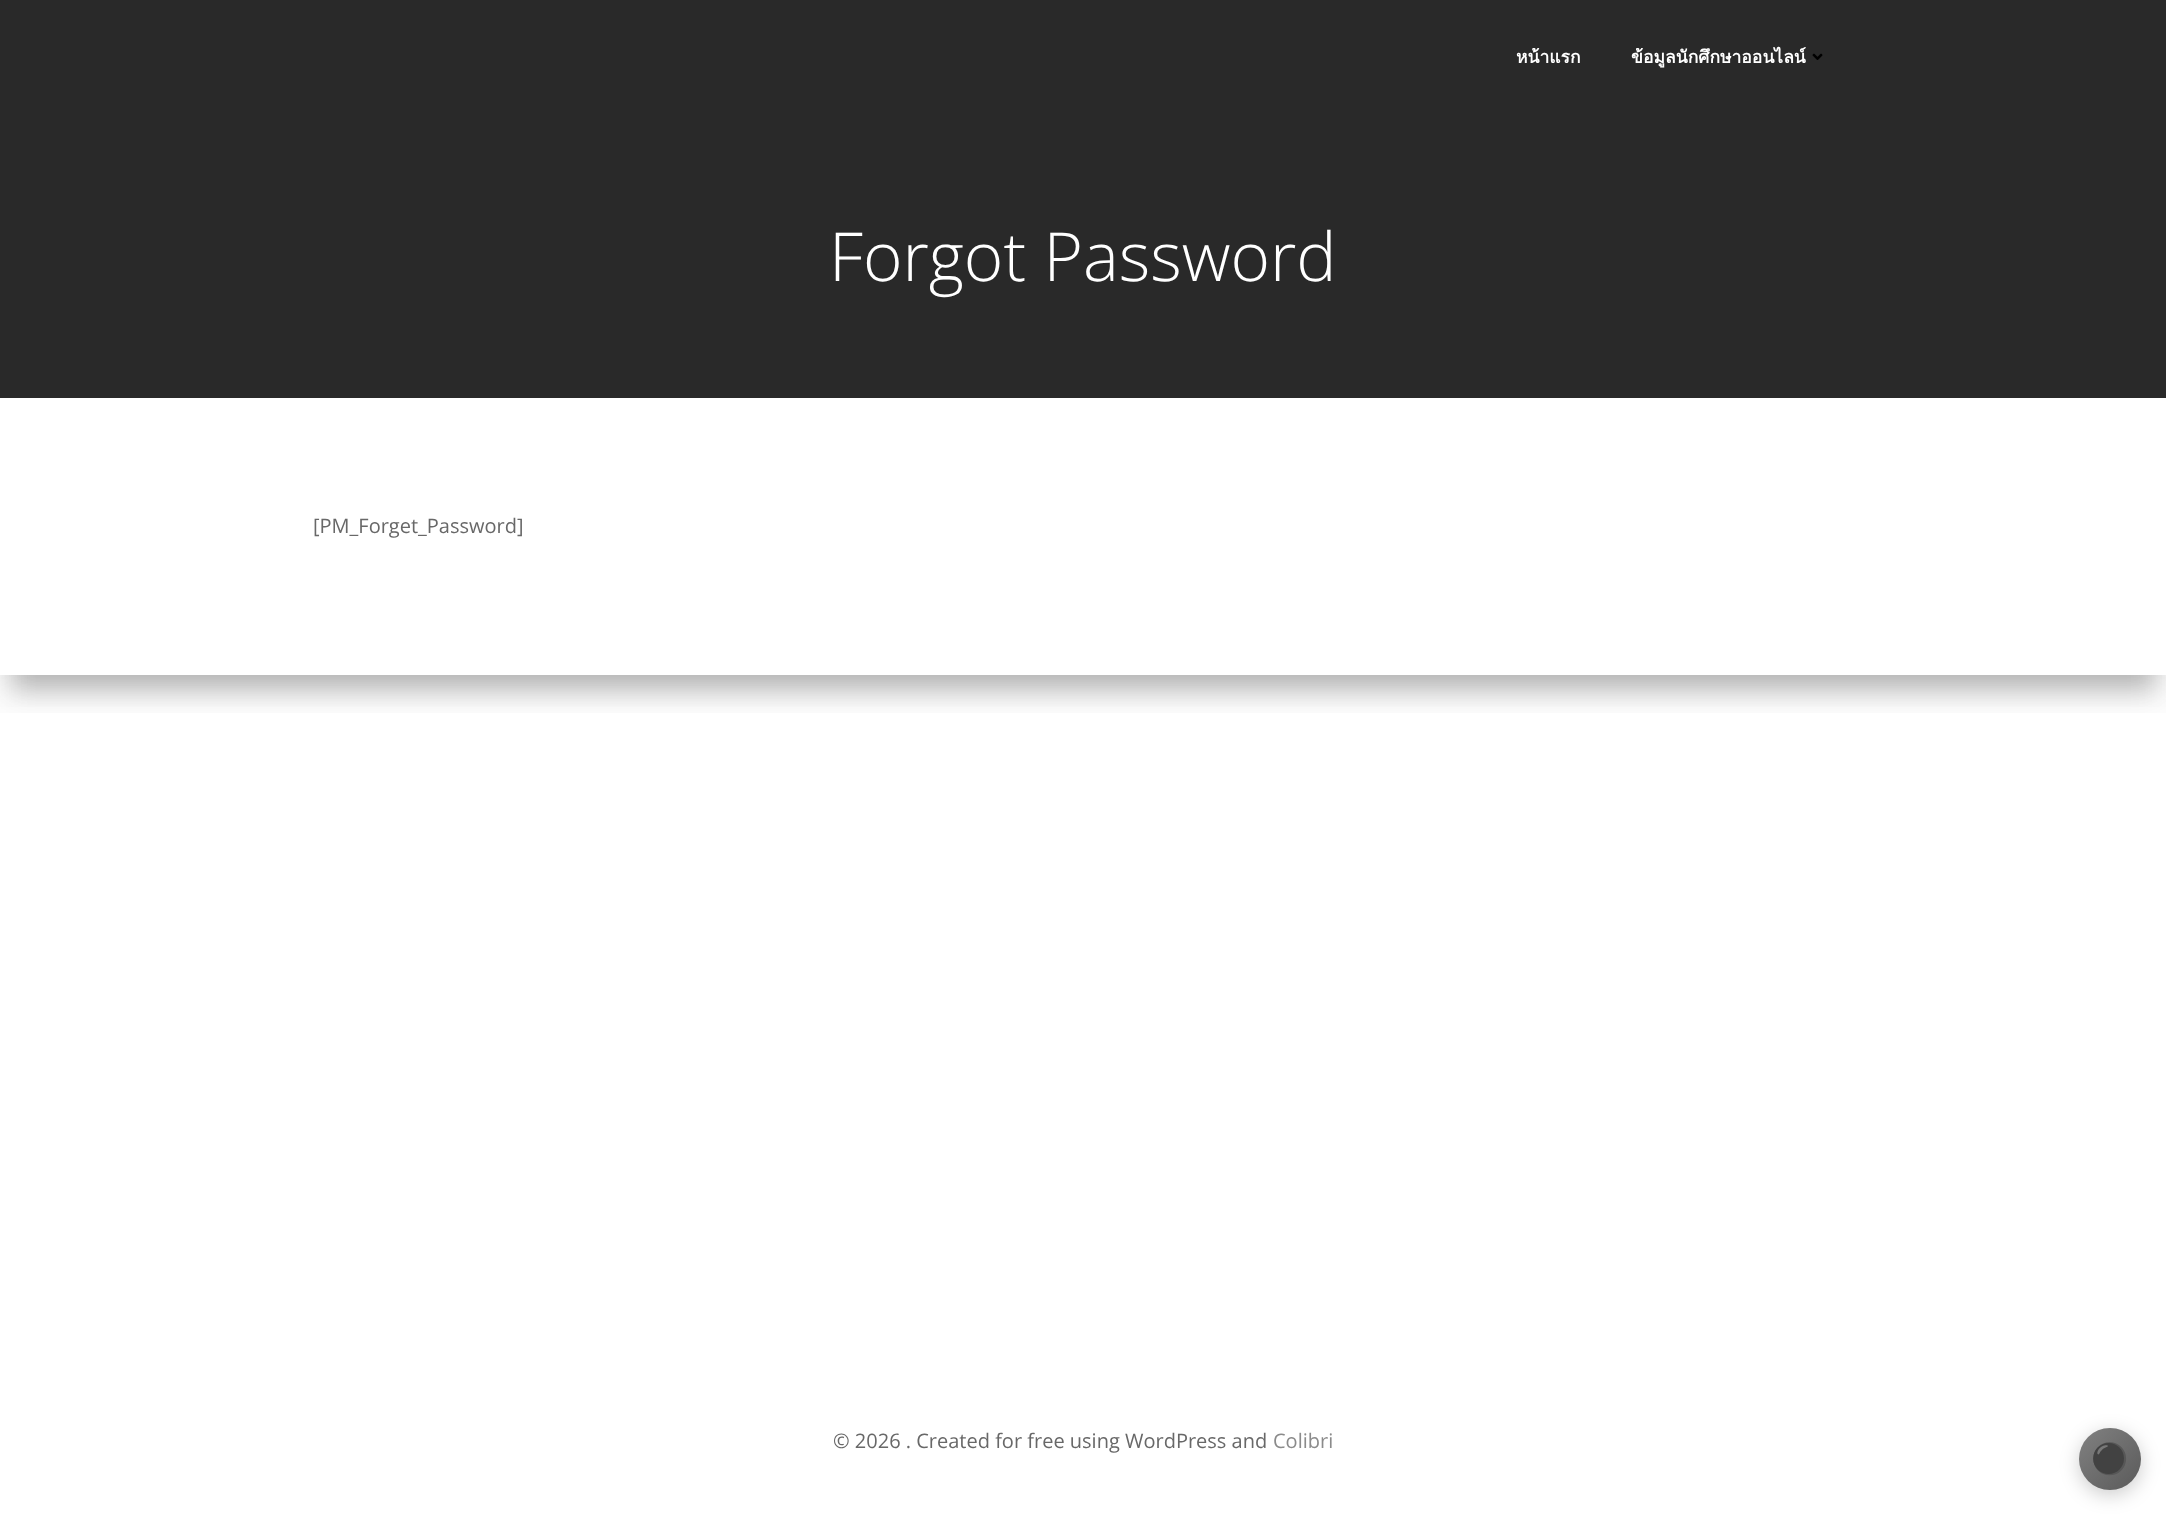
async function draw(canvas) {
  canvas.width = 2166
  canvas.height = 1514
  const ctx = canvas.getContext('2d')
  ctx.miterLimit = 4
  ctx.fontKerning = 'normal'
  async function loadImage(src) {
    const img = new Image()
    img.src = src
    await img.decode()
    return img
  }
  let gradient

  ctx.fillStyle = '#fff'
  ctx.fillRect(0, 0, 2166, 1514)
  ctx.save()
  ctx.beginPath()
  ctx.rect(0, 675, 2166, 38)
  ctx.clip()
  ctx.fillStyle = '#00000014'
  ctx.filter = 'blur(19px)'
  ctx.beginPath()
  ctx.rect(0, 423, 2166, 277)
  ctx.fill()
  ctx.filter = 'none'
  ctx.restore()
  ctx.save()
  ctx.beginPath()
  ctx.rect(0, 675, 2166, 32)
  ctx.clip()
  ctx.fillStyle = '#3434344d'
  ctx.filter = 'blur(12.5px)'
  ctx.beginPath()
  ctx.rect(13, 435, 2141, 253)
  ctx.fill()
  ctx.filter = 'none'
  ctx.restore()
  ctx.fillStyle = '#292929'
  ctx.fillRect(0, 0, 2166, 398)
  ctx.font = 'bold 17.5px Loma'
  ctx.fillStyle = '#fff'
  ctx.fillText('หน้าแรก', 1516, 63)
  ctx.fillText('ข้อมูลนักศึกษาออนไลน์', 1631, 63)
  ctx.drawImage(await loadImage('image0.png'), 1812, 53, 11, 7)
  ctx.font = '300 67.5px Open Sans'
  ctx.fillText('Forgot Password', 829, 281)
  ctx.font = '20px Open Sans'
  ctx.fillStyle = '#686868'
  ctx.fillText('[PM_Forget_Password]', 313, 533)
  ctx.fillText('© 2026 . Created for free using WordPress and', 833, 1448)
  ctx.fillStyle = '#8b8b8b'
  ctx.fillText('Colibri', 1273, 1448)
  ctx.fillStyle = '#00000033'
  ctx.filter = 'blur(9.5px)'
  ctx.beginPath()
  ctx.roundRect(2079, 1433, 62, 62, 31)
  ctx.fill()
  ctx.filter = 'none'
  gradient = ctx.createLinearGradient(2079, 1428, 2141, 1490)
  gradient.addColorStop(0, '#818181')
  gradient.addColorStop(1, '#5a5a5a')
  ctx.fillStyle = gradient
  ctx.beginPath()
  ctx.arc(2110, 1459, 31, 0, 2 * Math.PI)
  ctx.fill()
  ctx.font = '30px Noto Color Emoji'
  ctx.fillStyle = '#fff'
  ctx.fillText('⚫', 2091, 1469)
}

draw(document.querySelector('canvas'))
